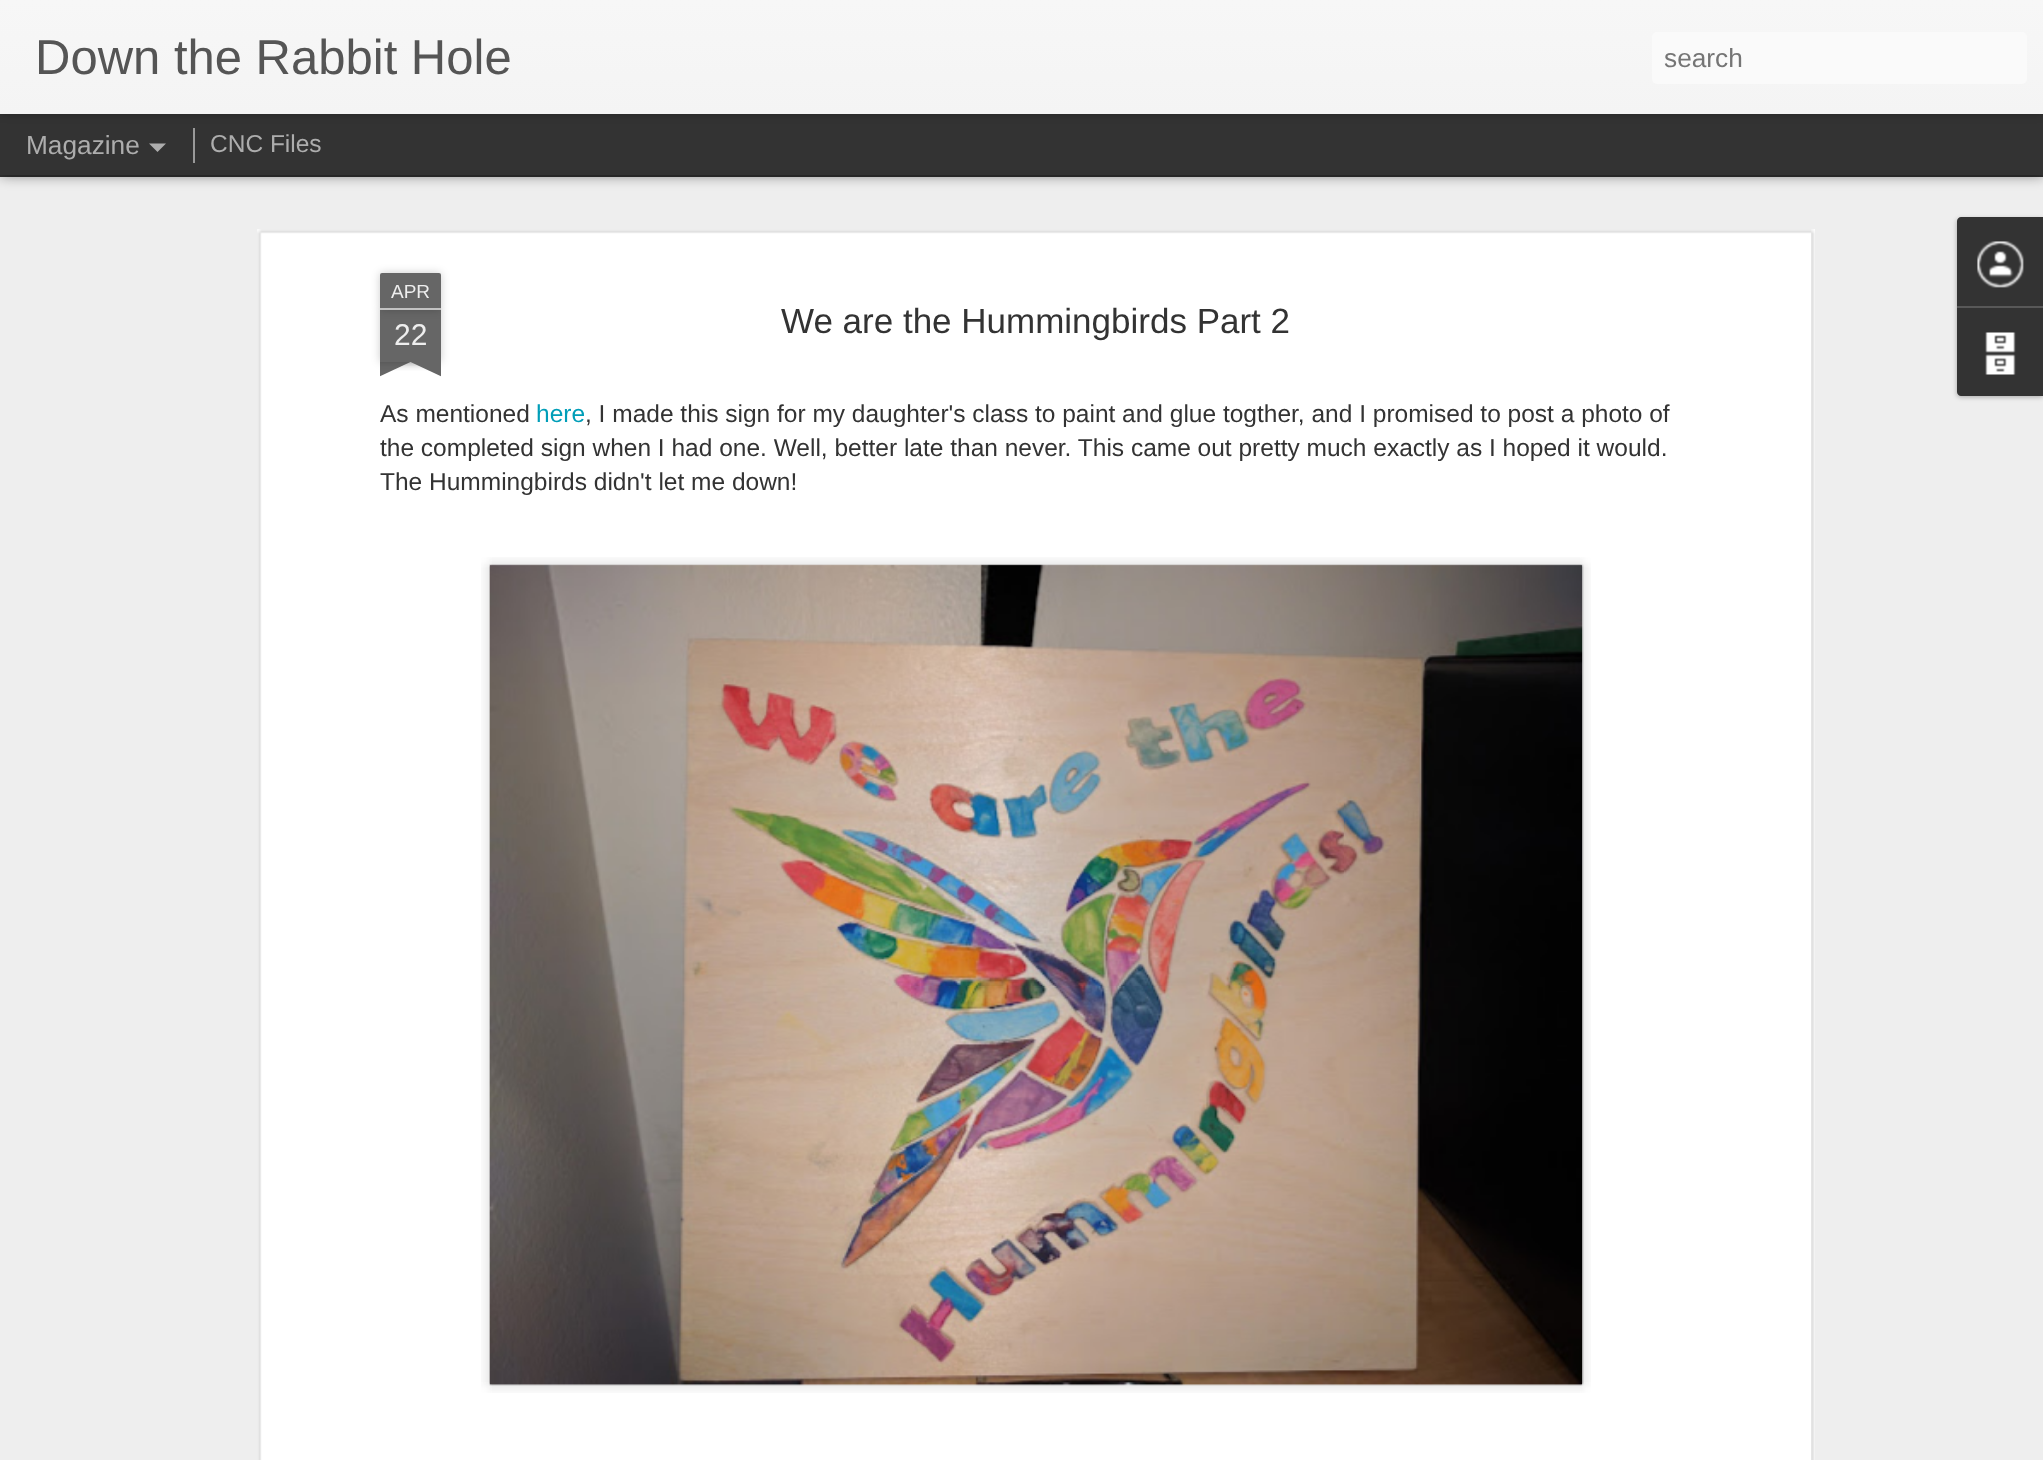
async function draw(canvas) {
  canvas.width = 2043
  canvas.height = 1460
  const ctx = canvas.getContext('2d')
  ctx.miterLimit = 4
  ctx.fontKerning = 'normal'
  async function loadImage(src) {
    const img = new Image()
    img.src = src
    await img.decode()
    return img
  }
  let gradient

  ctx.fillStyle = '#333'
  ctx.fillRect(0, 0, 2043, 1460)
  ctx.fillStyle = '#eee'
  ctx.fillRect(0, 177, 2043, 1283)
  ctx.fillStyle = '#00000080'
  ctx.filter = 'blur(7px)'
  ctx.beginPath()
  ctx.rect(0, 114, 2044, 61)
  ctx.fill()
  ctx.filter = 'none'
  ctx.fillStyle = '#333'
  ctx.fillRect(0, 114, 2043, 61)
  ctx.fillStyle = '#999'
  ctx.fillRect(193, 128, 2, 35)
  ctx.fillStyle = '#0000004d'
  ctx.filter = 'blur(4.5px)'
  ctx.beginPath()
  ctx.rect(0, 0, 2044, 114)
  ctx.fill()
  ctx.filter = 'none'
  gradient = ctx.createLinearGradient(0, 0, 0, 114)
  gradient.addColorStop(0, '#f7f7f7')
  gradient.addColorStop(1, '#f4f4f4')
  ctx.fillStyle = gradient
  ctx.fillRect(0, 0, 2043, 114)
  ctx.font = '49px Liberation Sans'
  ctx.fillStyle = '#555'
  ctx.fillText('Down the Rabbit Hole', 35, 74)
  ctx.fillStyle = '#fafafa'
  ctx.beginPath()
  ctx.roundRect(1652, 32, 375, 52, 5)
  ctx.fill()
  ctx.font = '26.25px Liberation Sans'
  ctx.fillStyle = '#757575'
  ctx.fillText('search', 1664, 67)
  ctx.fillStyle = '#adadad'
  ctx.fillText('Magazine', 26, 154)
  ctx.beginPath()
  ctx.moveTo(149, 143.5)
  ctx.lineTo(166, 143.5)
  ctx.lineTo(157.5, 152)
  ctx.closePath()
  ctx.fill()
  ctx.font = '24.5px Liberation Sans'
  ctx.fillText('CNC Files', 210, 152)
  ctx.fillStyle = '#fff'
  ctx.fillRect(257, 229, 1558, 1231)
  ctx.drawImage(await loadImage('image0.png'), 257, 229, 1558, 1231)
  ctx.fillStyle = '#00000033'
  ctx.filter = 'blur(4.5px)'
  ctx.beginPath()
  ctx.rect(380, 310, 61, 52)
  ctx.fill()
  ctx.filter = 'none'
  ctx.fillStyle = '#666'
  ctx.fillRect(380, 310, 61, 52)
  ctx.fillStyle = '#00000033'
  ctx.filter = 'blur(4.5px)'
  ctx.beginPath()
  ctx.roundRect(380, 273, 61, 37, 2)
  ctx.fill()
  ctx.filter = 'none'
  ctx.fillStyle = '#666'
  ctx.beginPath()
  ctx.roundRect(380, 273, 61, 37, [2, 2, 0, 0])
  ctx.fill()
  ctx.fillStyle = '#c2c2c2'
  ctx.fillRect(380, 308, 61, 2)
  ctx.font = '19px Liberation Sans'
  ctx.fillStyle = '#eee'
  ctx.fillText('APR', 391, 298)
  ctx.font = '30px Liberation Sans'
  ctx.fillText('22', 394, 345)
  ctx.save()
  ctx.beginPath()
  ctx.rect(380, 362, 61, 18)
  ctx.clip()
  ctx.fillStyle = '#00000033'
  ctx.filter = 'blur(4.5px)'
  ctx.beginPath()
  ctx.rect(364, 345, 88, 17)
  ctx.fill()
  ctx.filter = 'none'
  ctx.restore()
  ctx.save()
  ctx.beginPath()
  ctx.rect(380, 362, 61, 18)
  ctx.clip()
  ctx.fillStyle = '#666'
  ctx.beginPath()
  ctx.moveTo(364, 364)
  ctx.lineTo(444, 327)
  ctx.lineTo(451, 343)
  ctx.lineTo(372, 380)
  ctx.closePath()
  ctx.fill()
  ctx.restore()
  ctx.save()
  ctx.beginPath()
  ctx.rect(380, 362, 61, 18)
  ctx.clip()
  ctx.fillStyle = '#00000033'
  ctx.filter = 'blur(4.5px)'
  ctx.beginPath()
  ctx.rect(369, 345, 88, 17)
  ctx.fill()
  ctx.filter = 'none'
  ctx.restore()
  ctx.save()
  ctx.beginPath()
  ctx.rect(380, 362, 61, 18)
  ctx.clip()
  ctx.fillStyle = '#666'
  ctx.beginPath()
  ctx.moveTo(377, 327)
  ctx.lineTo(456, 364)
  ctx.lineTo(449, 380)
  ctx.lineTo(370, 343)
  ctx.closePath()
  ctx.fill()
  ctx.restore()
  ctx.font = '35px Liberation Sans'
  ctx.fillStyle = '#333'
  ctx.fillText('We are the Hummingbirds Part 2', 781, 333)
  ctx.font = '24.5px Liberation Sans'
  ctx.fillText('As mentioned', 380, 422)
  ctx.fillStyle = '#009eb8'
  ctx.fillText('here', 536, 422)
  ctx.fillStyle = '#333'
  ctx.fillText(', I made this sign for my daughter\'s class to paint and glue togther, and I promised to post a photo of', 585, 422)
  ctx.fillText('the completed sign when I had one. Well, better late than never. This came out pretty much exactly as I hoped it would.', 380, 456)
  ctx.fillText('The Hummingbirds didn\'t let me down!', 380, 490)
  ctx.drawImage(await loadImage('image1.png'), 481, 557, 1110, 836)
  ctx.drawImage(await loadImage('image2.png'), 489, 564, 1095, 822)
  ctx.fillStyle = '#0000004d'
  ctx.filter = 'blur(2.5px)'
  ctx.beginPath()
  ctx.roundRect(1957, 219, 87, 178, 4)
  ctx.fill()
  ctx.filter = 'none'
  ctx.fillStyle = '#333'
  ctx.beginPath()
  ctx.moveTo(1961, 217)
  ctx.lineTo(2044, 217)
  ctx.lineTo(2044, 306)
  ctx.lineTo(1957, 306)
  ctx.lineTo(1957, 221)
  ctx.bezierCurveTo(1957, 219, 1959, 217, 1961, 217)
  ctx.closePath()
  ctx.fill()
  ctx.drawImage(await loadImage('image3.png'), 1977, 241, 47, 47)
  ctx.beginPath()
  ctx.moveTo(1957, 306)
  ctx.lineTo(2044, 306)
  ctx.lineTo(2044, 396)
  ctx.lineTo(1961, 396)
  ctx.bezierCurveTo(1959, 396, 1957, 394, 1957, 392)
  ctx.closePath()
  ctx.fill()
  ctx.fillStyle = '#585858'
  ctx.fillRect(1957, 306, 86, 2)
  ctx.drawImage(await loadImage('image4.png'), 1985, 332, 31, 43)
}

draw(document.querySelector('canvas'))
